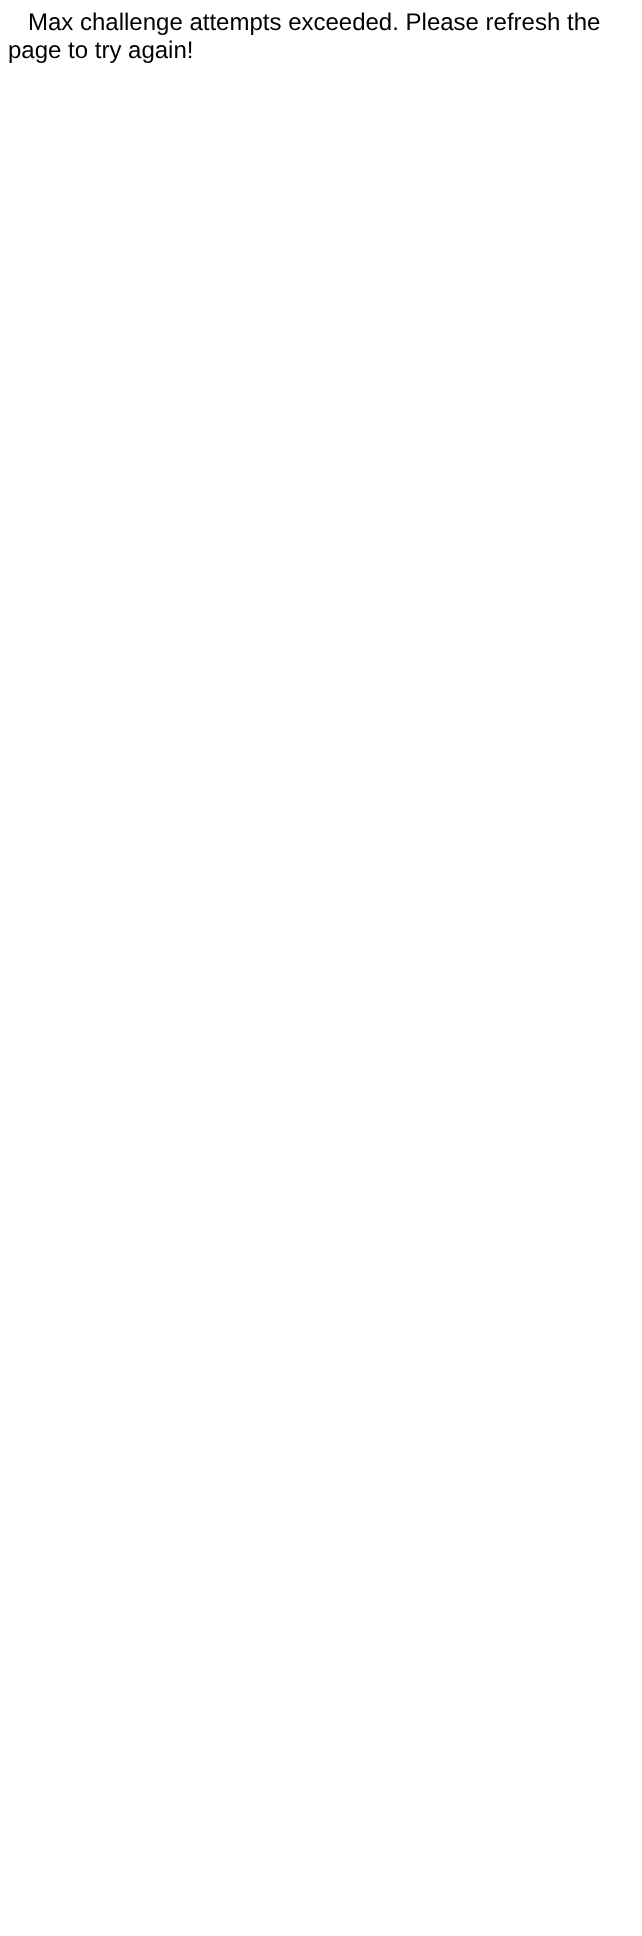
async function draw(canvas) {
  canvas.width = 642
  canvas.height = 1936
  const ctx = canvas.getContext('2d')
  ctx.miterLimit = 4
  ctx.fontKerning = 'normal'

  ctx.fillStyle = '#fff'
  ctx.fillRect(0, 0, 642, 1936)
  ctx.font = '24px Liberation Sans'
  ctx.fillStyle = '#000'
  ctx.fillText('Max challenge attempts exceeded. Please refresh the', 28, 30)
  ctx.fillText('page to try again!', 8, 58)
}

draw(document.querySelector('canvas'))
